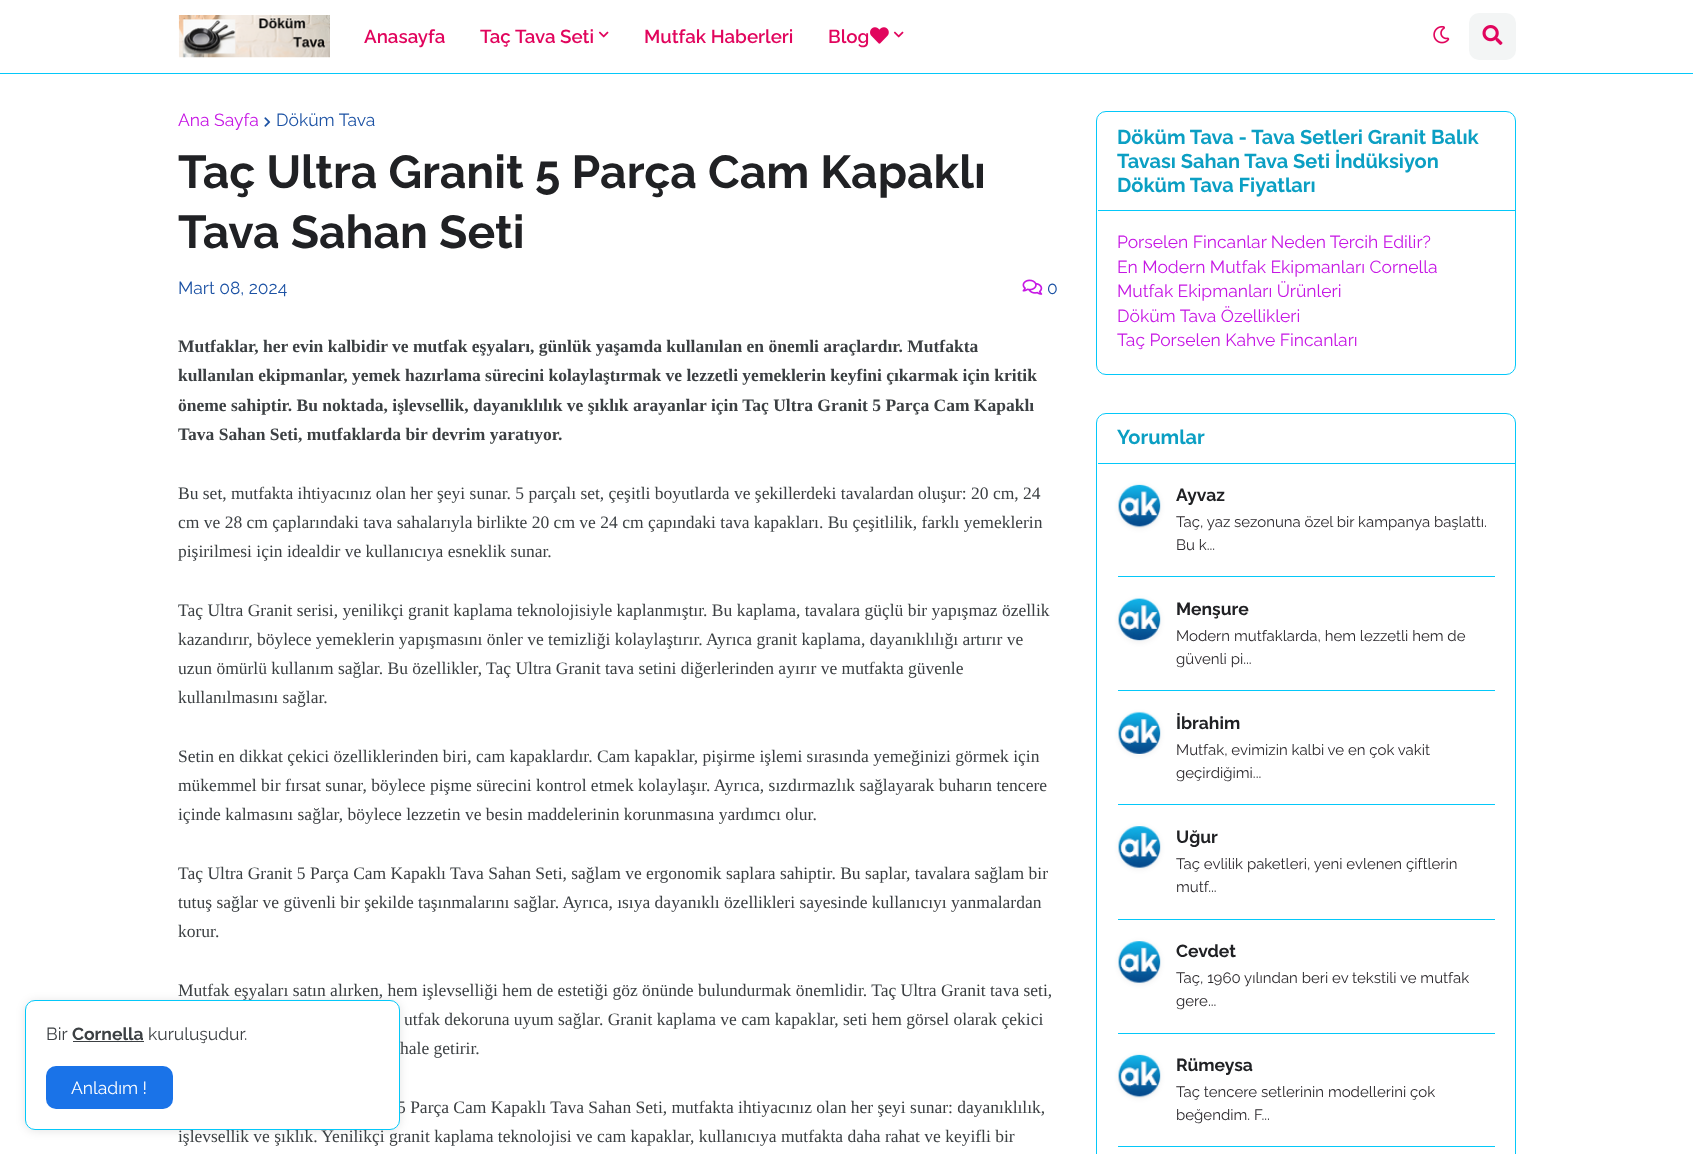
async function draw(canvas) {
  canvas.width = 1693
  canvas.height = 1154
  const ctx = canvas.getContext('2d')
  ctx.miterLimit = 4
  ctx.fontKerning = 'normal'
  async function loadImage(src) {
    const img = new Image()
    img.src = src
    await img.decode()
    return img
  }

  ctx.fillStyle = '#fff'
  ctx.fillRect(0, 0, 1693, 1154)
  ctx.fillStyle = '#04c8f9'
  ctx.fillRect(0, 73, 1693, 1)
  ctx.drawImage(await loadImage('image0.png'), 178, 15, 152, 43)
  ctx.font = '600 18.75px Raleway'
  ctx.fillStyle = '#e1055d'
  ctx.fillText('Anasayfa', 364, 43)
  ctx.fillText('Taç Tava Seti', 480, 43)
  ctx.drawImage(await loadImage('image1.png'), 598, 31, 11, 7)
  ctx.fillText('Mutfak Haberleri', 644, 43)
  ctx.fillText('Blog', 828, 43)
  ctx.drawImage(await loadImage('image2.png'), 870, 27, 19, 17)
  ctx.drawImage(await loadImage('image1.png'), 893, 31, 11, 7)
  ctx.drawImage(await loadImage('image3.png'), 1433, 25, 17, 19)
  ctx.fillStyle = '#f3f5f5'
  ctx.beginPath()
  ctx.roundRect(1469, 13, 47, 47, 10)
  ctx.fill()
  ctx.drawImage(await loadImage('image4.png'), 1482, 25, 21, 20)
  ctx.fillStyle = '#0000001a'
  ctx.filter = 'blur(5px)'
  ctx.beginPath()
  ctx.roundRect(25, 1001, 375, 130, 10)
  ctx.fill()
  ctx.filter = 'none'
  ctx.font = '17.5px Liberation Serif'
  ctx.fillStyle = '#3c4043'
  ctx.fillText('5 Parça Cam Kapaklı Tava Sahan Seti, mutfakta ihtiyacınız olan her şeyi sunar: dayanıklılık,', 397, 1113)
  ctx.fillText('işlevsellik ve şıklık. Yenilikçi granit kaplama teknolojisi ve cam kapaklar, kullanıcıya mutfakta daha rahat ve keyifli bir', 178, 1142)
  ctx.fillStyle = '#fff'
  ctx.beginPath()
  ctx.roundRect(25.5, 1000.5, 374, 129, 9.5)
  ctx.fill()
  ctx.strokeStyle = '#04c8f9'
  ctx.stroke()
  ctx.font = '17.5px Raleway'
  ctx.fillStyle = '#3c4043'
  ctx.fillText('Bir', 46, 1040)
  ctx.font = 'bold 17.5px Raleway'
  ctx.fillText('Cornella', 72, 1040)
  ctx.fillRect(73, 1041, 71, 1)
  ctx.font = '17.5px Raleway'
  ctx.fillText('kuruluşudur.', 148, 1040)
  ctx.fillStyle = '#1a73e8'
  ctx.beginPath()
  ctx.roundRect(46, 1066, 127, 43, 10)
  ctx.fill()
  ctx.fillStyle = '#fff'
  ctx.fillText('Anladım !', 71, 1094)
  ctx.fillStyle = '#c617e4'
  ctx.fillText('Ana Sayfa', 178, 126)
  ctx.drawImage(await loadImage('image5.png'), 264, 117, 7, 10)
  ctx.fillStyle = '#1c52a4'
  ctx.fillText('Döküm Tava', 276, 126)
  ctx.font = 'bold 46.25px Raleway'
  ctx.fillStyle = '#202124'
  ctx.fillText('Taç Ultra Granit 5 Parça Cam Kapaklı', 178, 188)
  ctx.fillText('Tava Sahan Seti', 178, 248)
  ctx.font = '17.5px Raleway'
  ctx.fillStyle = '#1c52a4'
  ctx.fillText('Mart 08, 2024', 178, 294)
  ctx.drawImage(await loadImage('image6.png'), 1022, 279, 21, 16)
  ctx.fillText('0', 1047, 294)
  ctx.font = 'bold 17.5px Liberation Serif'
  ctx.fillStyle = '#3c4043'
  ctx.fillText('Mutfaklar, her evin kalbidir ve mutfak eşyaları, günlük yaşamda kullanılan en önemli araçlardır. Mutfakta', 178, 352)
  ctx.fillText('kullanılan ekipmanlar, yemek hazırlama sürecini kolaylaştırmak ve lezzetli yemeklerin keyfini çıkarmak için kritik', 178, 381)
  ctx.fillText('öneme sahiptir. Bu noktada, işlevsellik, dayanıklılık ve şıklık arayanlar için Taç Ultra Granit 5 Parça Cam Kapaklı', 178, 411)
  ctx.fillText('Tava Sahan Seti, mutfaklarda bir devrim yaratıyor.', 178, 440)
  ctx.font = '17.5px Liberation Serif'
  ctx.fillText('Bu set, mutfakta ihtiyacınız olan her şeyi sunar. 5 parçalı set, çeşitli boyutlarda ve şekillerdeki tavalardan oluşur: 20 cm, 24', 178, 499)
  ctx.fillText('cm ve 28 cm çaplarındaki tava sahalarıyla birlikte 20 cm ve 24 cm çapındaki tava kapakları. Bu çeşitlilik, farklı yemeklerin', 178, 528)
  ctx.fillText('pişirilmesi için idealdir ve kullanıcıya esneklik sunar.', 178, 557)
  ctx.fillText('Taç Ultra Granit serisi, yenilikçi granit kaplama teknolojisiyle kaplanmıştır. Bu kaplama, tavalara güçlü bir yapışmaz özellik', 178, 616)
  ctx.fillText('kazandırır, böylece yemeklerin yapışmasını önler ve temizliği kolaylaştırır. Ayrıca granit kaplama, dayanıklılığı artırır ve', 178, 645)
  ctx.fillText('uzun ömürlü kullanım sağlar. Bu özellikler, Taç Ultra Granit tava setini diğerlerinden ayırır ve mutfakta güvenle', 178, 674)
  ctx.fillText('kullanılmasını sağlar.', 178, 703)
  ctx.fillText('Setin en dikkat çekici özelliklerinden biri, cam kapaklardır. Cam kapaklar, pişirme işlemi sırasında yemeğinizi görmek için', 178, 762)
  ctx.fillText('mükemmel bir fırsat sunar, böylece pişme sürecini kontrol etmek kolaylaşır. Ayrıca, sızdırmazlık sağlayarak buharın tencere', 178, 791)
  ctx.fillText('içinde kalmasını sağlar, böylece lezzetin ve besin maddelerinin korunmasına yardımcı olur.', 178, 820)
  ctx.fillText('Taç Ultra Granit 5 Parça Cam Kapaklı Tava Sahan Seti, sağlam ve ergonomik saplara sahiptir. Bu saplar, tavalara sağlam bir', 178, 879)
  ctx.fillText('tutuş sağlar ve güvenli bir şekilde taşınmalarını sağlar. Ayrıca, ısıya dayanıklı özellikleri sayesinde kullanıcıyı yanmalardan', 178, 908)
  ctx.fillText('korur.', 178, 937)
  ctx.fillText('Mutfak eşyaları satın alırken, hem işlevselliği hem de estetiği göz önünde bulundurmak önemlidir. Taç Ultra Granit tava seti,', 178, 996)
  ctx.fillText('utfak dekoruna uyum sağlar. Granit kaplama ve cam kapaklar, seti hem görsel olarak çekici', 404, 1025)
  ctx.fillText('hale getirir.', 400, 1054)
  ctx.beginPath()
  ctx.roundRect(1096.5, 111.5, 419, 263, 9.5)
  ctx.stroke()
  ctx.fillStyle = '#04c8f9'
  ctx.fillRect(1098, 210, 417, 1)
  ctx.font = 'bold 20px Raleway'
  ctx.fillStyle = '#0b9fc3'
  ctx.fillText('Döküm Tava - Tava Setleri Granit Balık', 1117, 144)
  ctx.fillText('Tavası Sahan Tava Seti İndüksiyon', 1117, 168)
  ctx.fillText('Döküm Tava Fiyatları', 1117, 192)
  ctx.font = '17.5px Raleway'
  ctx.fillStyle = '#c617e4'
  ctx.fillText('Porselen Fincanlar Neden Tercih Edilir?', 1117, 248)
  ctx.fillText('En Modern Mutfak Ekipmanları Cornella', 1117, 273)
  ctx.fillText('Mutfak Ekipmanları Ürünleri', 1117, 297)
  ctx.fillText('Döküm Tava Özellikleri', 1117, 322)
  ctx.fillText('Taç Porselen Kahve Fincanları', 1117, 346)
  ctx.beginPath()
  ctx.roundRect(1096.5, 413.5, 419, 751, 9.5)
  ctx.stroke()
  ctx.fillStyle = '#04c8f9'
  ctx.fillRect(1098, 463, 417, 1)
  ctx.font = 'bold 20px Raleway'
  ctx.fillStyle = '#0b9fc3'
  ctx.fillText('Yorumlar', 1117, 444)
  ctx.fillStyle = '#0000000d'
  ctx.filter = 'blur(2.5px)'
  ctx.beginPath()
  ctx.roundRect(1118, 485, 43, 44, 21.5)
  ctx.fill()
  ctx.filter = 'none'
  ctx.fillStyle = '#9baaaf1f'
  ctx.beginPath()
  ctx.roundRect(1118, 484, 43, 44, 21.5)
  ctx.fill()
  ctx.drawImage(await loadImage('image7.png'), 1118, 484, 43, 43)
  ctx.font = 'bold 17.5px Raleway'
  ctx.fillStyle = '#202124'
  ctx.fillText('Ayvaz', 1176, 501)
  ctx.font = '15px Raleway'
  ctx.fillStyle = '#2c292d'
  ctx.fillText('Taç, yaz sezonuna özel bir kampanya başlattı.', 1176, 527)
  ctx.fillText('Bu k...', 1176, 550)
  ctx.fillStyle = '#04c8f9'
  ctx.fillRect(1118, 576, 377, 1)
  ctx.fillStyle = '#0000000d'
  ctx.filter = 'blur(2.5px)'
  ctx.beginPath()
  ctx.roundRect(1118, 599, 43, 44, 21.5)
  ctx.fill()
  ctx.filter = 'none'
  ctx.drawImage(await loadImage('image8.png'), 1118, 598, 43, 43)
  ctx.font = 'bold 17.5px Raleway'
  ctx.fillStyle = '#202124'
  ctx.fillText('Menşure', 1176, 615)
  ctx.font = '15px Raleway'
  ctx.fillStyle = '#2c292d'
  ctx.fillText('Modern mutfaklarda, hem lezzetli hem de', 1176, 641)
  ctx.fillText('güvenli pi...', 1176, 664)
  ctx.fillStyle = '#04c8f9'
  ctx.fillRect(1118, 690, 377, 1)
  ctx.fillStyle = '#0000000d'
  ctx.filter = 'blur(2.5px)'
  ctx.beginPath()
  ctx.roundRect(1118, 713, 43, 43, 21.5)
  ctx.fill()
  ctx.filter = 'none'
  ctx.fillStyle = '#9baaaf1f'
  ctx.beginPath()
  ctx.roundRect(1118, 711, 43, 44, 21.5)
  ctx.fill()
  ctx.drawImage(await loadImage('image9.png'), 1118, 711, 43, 44)
  ctx.font = 'bold 17.5px Raleway'
  ctx.fillStyle = '#202124'
  ctx.fillText('İbrahim', 1176, 729)
  ctx.font = '15px Raleway'
  ctx.fillStyle = '#2c292d'
  ctx.fillText('Mutfak, evimizin kalbi ve en çok vakit', 1176, 755)
  ctx.fillText('geçirdiğimi...', 1176, 778)
  ctx.fillStyle = '#04c8f9'
  ctx.fillRect(1118, 804, 377, 1)
  ctx.fillStyle = '#0000000d'
  ctx.filter = 'blur(2.5px)'
  ctx.beginPath()
  ctx.roundRect(1118, 826, 43, 44, 21.5)
  ctx.fill()
  ctx.filter = 'none'
  ctx.fillStyle = '#9baaaf1f'
  ctx.beginPath()
  ctx.roundRect(1118, 825, 43, 44, 21.5)
  ctx.fill()
  ctx.drawImage(await loadImage('image10.png'), 1118, 825, 43, 44)
  ctx.font = 'bold 17.5px Raleway'
  ctx.fillStyle = '#202124'
  ctx.fillText('Uğur', 1176, 843)
  ctx.font = '15px Raleway'
  ctx.fillStyle = '#2c292d'
  ctx.fillText('Taç evlilik paketleri, yeni evlenen çiftlerin', 1176, 869)
  ctx.fillText('mutf...', 1176, 892)
  ctx.fillStyle = '#04c8f9'
  ctx.fillRect(1118, 919, 377, 1)
  ctx.fillStyle = '#0000000d'
  ctx.filter = 'blur(2.5px)'
  ctx.beginPath()
  ctx.roundRect(1118, 941, 43, 44, 21.5)
  ctx.fill()
  ctx.filter = 'none'
  ctx.fillStyle = '#9baaaf1f'
  ctx.beginPath()
  ctx.roundRect(1118, 940, 43, 44, 21.5)
  ctx.fill()
  ctx.drawImage(await loadImage('image10.png'), 1118, 940, 43, 44)
  ctx.font = 'bold 17.5px Raleway'
  ctx.fillStyle = '#202124'
  ctx.fillText('Cevdet', 1176, 957)
  ctx.font = '15px Raleway'
  ctx.fillStyle = '#2c292d'
  ctx.fillText('Taç, 1960 yılından beri ev tekstili ve mutfak', 1176, 983)
  ctx.fillText('gere...', 1176, 1006)
  ctx.fillStyle = '#04c8f9'
  ctx.fillRect(1118, 1033, 377, 1)
  ctx.fillStyle = '#0000000d'
  ctx.filter = 'blur(2.5px)'
  ctx.beginPath()
  ctx.roundRect(1118, 1055, 43, 44, 21.5)
  ctx.fill()
  ctx.filter = 'none'
  ctx.fillStyle = '#9baaaf1f'
  ctx.beginPath()
  ctx.roundRect(1118, 1054, 43, 44, 21.5)
  ctx.fill()
  ctx.drawImage(await loadImage('image11.png'), 1118, 1054, 43, 43)
  ctx.font = 'bold 17.5px Raleway'
  ctx.fillStyle = '#202124'
  ctx.fillText('Rümeysa', 1176, 1071)
  ctx.font = '15px Raleway'
  ctx.fillStyle = '#2c292d'
  ctx.fillText('Taç tencere setlerinin modellerini çok', 1176, 1097)
  ctx.fillText('beğendim. F...', 1176, 1120)
  ctx.fillStyle = '#04c8f9'
  ctx.fillRect(1118, 1146, 377, 1)
}

draw(document.querySelector('canvas'))
